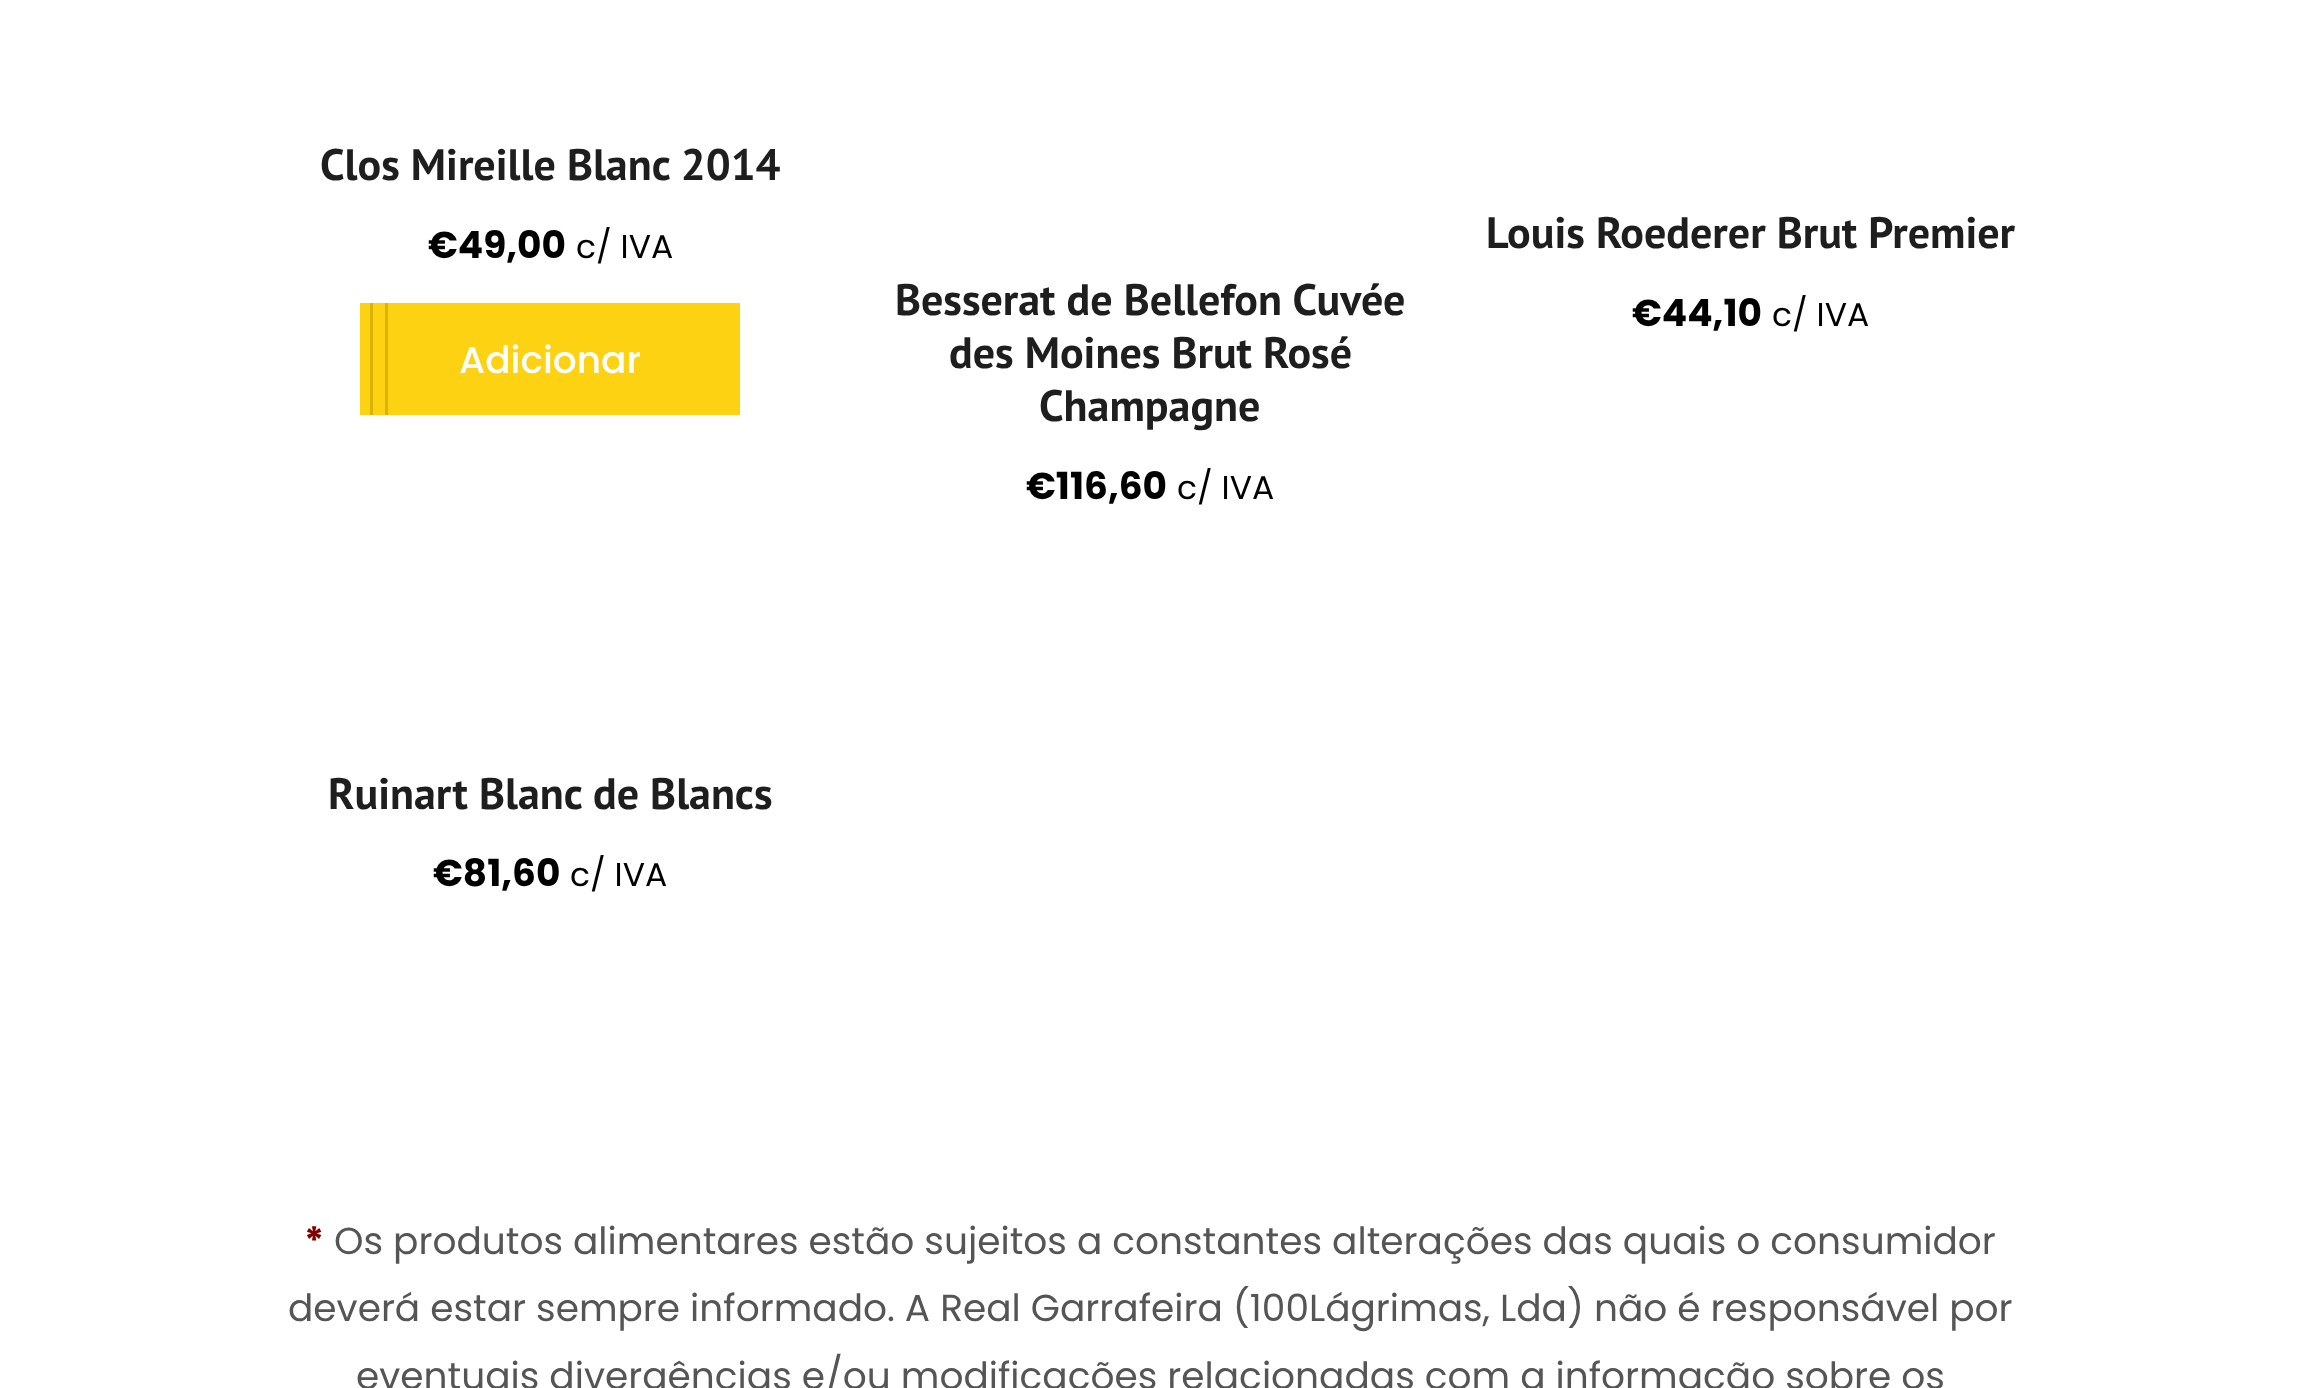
async function draw(canvas) {
  canvas.width = 2299
  canvas.height = 1388
  const ctx = canvas.getContext('2d')
  ctx.miterLimit = 4
  ctx.fontKerning = 'normal'

  ctx.fillStyle = '#fff'
  ctx.fillRect(0, 0, 2299, 1388)
  ctx.font = 'bold 44px PT Sans'
  ctx.fillStyle = '#1e1e1e'
  ctx.fillText('Clos Mireille Blanc 2014', 320, 180)
  ctx.font = 'bold 37.5px Poppins'
  ctx.fillStyle = '#000'
  ctx.fillText('€49,00', 428, 258)
  ctx.font = '33px Poppins'
  ctx.fillText('c/ IVA', 576, 258)
  ctx.fillStyle = '#fdd213'
  ctx.fillRect(360, 303, 380, 112)
  ctx.fillStyle = '#dbb302'
  ctx.fillRect(370, 303, 3, 112)
  ctx.fillRect(385, 303, 3, 112)
  ctx.font = '500 37.5px Poppins'
  ctx.fillStyle = '#fff'
  ctx.fillText('Adicionar', 459, 373)
  ctx.font = 'bold 44px PT Sans'
  ctx.fillStyle = '#1e1e1e'
  ctx.fillText('Besserat de Bellefon Cuvée', 895, 315)
  ctx.fillText('des Moines Brut Rosé', 949, 368)
  ctx.fillText('Champagne', 1039, 421)
  ctx.font = 'bold 37.5px Poppins'
  ctx.fillStyle = '#000'
  ctx.fillText('€116,60', 1026, 499)
  ctx.font = '33px Poppins'
  ctx.fillText('c/ IVA', 1177, 499)
  ctx.font = 'bold 44px PT Sans'
  ctx.fillStyle = '#1e1e1e'
  ctx.fillText('Louis Roederer Brut Premier', 1486, 248)
  ctx.font = 'bold 37.5px Poppins'
  ctx.fillStyle = '#000'
  ctx.fillText('€44,10', 1632, 326)
  ctx.font = '33px Poppins'
  ctx.fillText('c/ IVA', 1772, 326)
  ctx.font = 'bold 44px PT Sans'
  ctx.fillStyle = '#1e1e1e'
  ctx.fillText('Ruinart Blanc de Blancs', 328, 809)
  ctx.font = 'bold 37.5px Poppins'
  ctx.fillStyle = '#000'
  ctx.fillText('€81,60', 433, 886)
  ctx.font = '33px Poppins'
  ctx.fillText('c/ IVA', 570, 886)
  ctx.font = 'bold 37.5px Poppins'
  ctx.fillStyle = '#800000'
  ctx.fillText('*', 304, 1254)
  ctx.font = '37.5px Poppins'
  ctx.fillStyle = '#555'
  ctx.fillText('Os produtos alimentares estão sujeitos a constantes alterações das quais o consumidor', 334, 1254)
  ctx.fillText('deverá estar sempre informado. A Real Garrafeira (100Lágrimas, Lda) não é responsável por', 288, 1321)
  ctx.fillText('eventuais divergências e/ou modificações relacionadas com a informação sobre os', 356, 1389)
}

draw(document.querySelector('canvas'))
